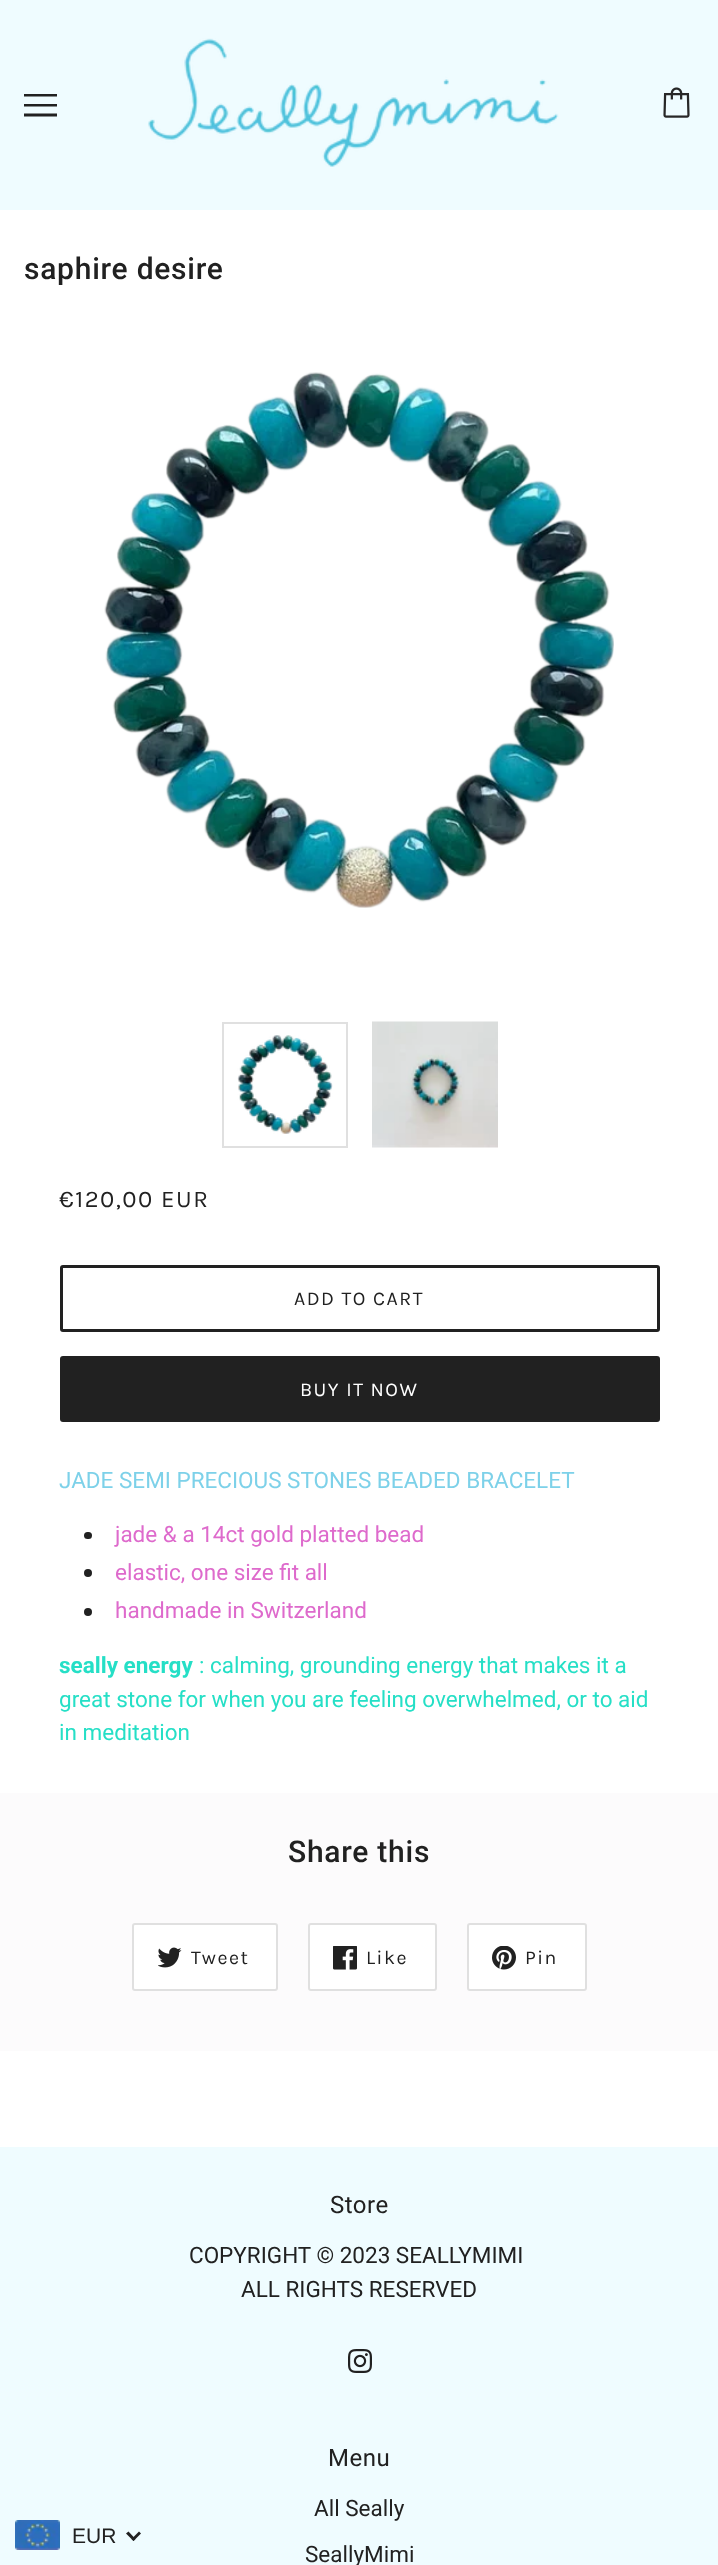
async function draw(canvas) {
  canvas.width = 718
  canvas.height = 2565
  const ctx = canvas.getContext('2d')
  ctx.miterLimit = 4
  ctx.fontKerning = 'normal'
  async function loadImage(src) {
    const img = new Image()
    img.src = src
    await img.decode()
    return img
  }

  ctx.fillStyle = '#fff'
  ctx.fillRect(0, 0, 718, 2565)
  ctx.fillStyle = '#effcff'
  ctx.fillRect(0, 0, 718, 210)
  ctx.fillStyle = '#212121'
  ctx.beginPath()
  ctx.moveTo(24, 96.5)
  ctx.lineTo(24, 94)
  ctx.lineTo(57, 94)
  ctx.lineTo(57, 96.5)
  ctx.closePath()
  ctx.moveTo(24, 106.5)
  ctx.lineTo(24, 104)
  ctx.lineTo(57, 104)
  ctx.lineTo(57, 106.5)
  ctx.closePath()
  ctx.moveTo(24, 116.5)
  ctx.lineTo(24, 113.5)
  ctx.lineTo(57, 113.5)
  ctx.lineTo(57, 116.5)
  ctx.closePath()
  ctx.fill()
  ctx.drawImage(await loadImage('image0.png'), 148, 38, 411, 129)
  ctx.drawImage(await loadImage('image1.png'), 663, 87, 27, 31)
  ctx.letterSpacing = '0.75px'
  ctx.font = '500 30px Roboto'
  ctx.fillText('saphire desire', 24, 279)
  ctx.drawImage(await loadImage('image2.png'), 104, 372, 510, 536)
  ctx.strokeStyle = '#e0e0e0'
  ctx.lineWidth = 2
  ctx.strokeRect(223, 1023, 124, 124)
  ctx.drawImage(await loadImage('image3.png'), 237, 1035, 96, 99)
  ctx.drawImage(await loadImage('image4.png'), 372, 1021, 126, 127)
  ctx.letterSpacing = '1.5px'
  ctx.font = '24px Karla'
  ctx.fillText('€120,00 EUR', 59, 1207)
  ctx.beginPath()
  ctx.roundRect(61.5, 1266.5, 597, 64, 1.5)
  ctx.strokeStyle = '#212121'
  ctx.lineWidth = 3
  ctx.stroke()
  ctx.font = '19.5px Karla'
  ctx.fillText('ADD TO CART', 294, 1305)
  ctx.beginPath()
  ctx.roundRect(60, 1356, 600, 66, 3)
  ctx.fill()
  ctx.fillStyle = '#fff'
  ctx.fillText('BUY IT NOW', 300, 1396)
  ctx.letterSpacing = '0px'
  ctx.font = '22.5px Roboto'
  ctx.fillStyle = '#7dd1e9'
  ctx.fillText('JADE SEMI PRECIOUS STONES BEADED BRACELET', 59, 1488)
  ctx.fillStyle = '#212121'
  ctx.beginPath()
  ctx.roundRect(84, 1532, 8, 7, 3.5)
  ctx.fill()
  ctx.fillStyle = '#de6acc'
  ctx.fillText('jade & a 14ct gold platted bead', 115, 1542)
  ctx.fillStyle = '#212121'
  ctx.beginPath()
  ctx.arc(88, 1573, 4, 0, 2 * Math.PI)
  ctx.fill()
  ctx.fillStyle = '#de6acc'
  ctx.fillText('elastic, one size fit all', 115, 1580)
  ctx.fillStyle = '#212121'
  ctx.beginPath()
  ctx.arc(88, 1612, 4, 0, 2 * Math.PI)
  ctx.fill()
  ctx.fillStyle = '#de6acc'
  ctx.fillText('handmade in Switzerland', 115, 1618)
  ctx.font = 'bold 22.5px Roboto'
  ctx.fillStyle = '#25dfc6'
  ctx.fillText('seally energy', 59, 1673)
  ctx.font = '22.5px Roboto'
  ctx.fillText(': calming, grounding energy that makes it a', 199, 1673)
  ctx.fillText('great stone for when you are feeling overwhelmed, or to aid', 59, 1707)
  ctx.fillText('in meditation', 59, 1740)
  ctx.fillStyle = '#fcfbfc'
  ctx.fillRect(0, 1793, 718, 258)
  ctx.letterSpacing = '0.75px'
  ctx.font = '500 30px Roboto'
  ctx.fillStyle = '#212121'
  ctx.fillText('Share this', 288, 1862)
  ctx.fillStyle = '#fff'
  ctx.beginPath()
  ctx.roundRect(133, 1924, 144, 66, 2)
  ctx.fill()
  ctx.strokeStyle = '#e0e0e0'
  ctx.lineWidth = 2
  ctx.stroke()
  ctx.drawImage(await loadImage('image5.png'), 158, 1947, 24, 21)
  ctx.letterSpacing = '1.5px'
  ctx.font = '19.5px Karla'
  ctx.fillStyle = '#212121'
  ctx.fillText('Tweet', 191, 1964)
  ctx.fillStyle = '#fff'
  ctx.beginPath()
  ctx.roundRect(309, 1924, 127, 66, 2)
  ctx.fill()
  ctx.stroke()
  ctx.drawImage(await loadImage('image6.png'), 333, 1946, 24, 24)
  ctx.fillStyle = '#212121'
  ctx.fillText('Like', 366, 1964)
  ctx.fillStyle = '#fff'
  ctx.beginPath()
  ctx.roundRect(468, 1924, 118, 66, 2)
  ctx.fill()
  ctx.stroke()
  ctx.drawImage(await loadImage('image7.png'), 492, 1946, 24, 24)
  ctx.fillStyle = '#212121'
  ctx.fillText('Pin', 525, 1964)
  ctx.fillStyle = '#effcff'
  ctx.fillRect(0, 2147, 718, 418)
  ctx.letterSpacing = '0.5px'
  ctx.font = '24px Roboto'
  ctx.fillStyle = '#212121'
  ctx.fillText('Store', 330, 2213)
  ctx.letterSpacing = '0px'
  ctx.font = '22.5px Roboto'
  ctx.fillText('COPYRIGHT © 2023 SEALLYMIMI', 189, 2263)
  ctx.fillText('ALL RIGHTS RESERVED', 241, 2297)
  ctx.drawImage(await loadImage('image8.png'), 348, 2349, 24, 24)
  ctx.letterSpacing = '0.5px'
  ctx.font = '24px Roboto'
  ctx.fillText('Menu', 328, 2466)
  ctx.letterSpacing = '0px'
  ctx.font = '22.5px Roboto'
  ctx.fillText('All Seally', 314, 2516)
  ctx.fillText('SeallyMimi', 305, 2562)
  ctx.drawImage(await loadImage('image9.png'), 15, 2520, 45, 30)
  ctx.font = '21px Liberation Sans'
  ctx.fillText('EUR', 72, 2543)
  ctx.beginPath()
  ctx.moveTo(139, 2531.5)
  ctx.lineTo(141, 2533.5)
  ctx.lineTo(133.5, 2541)
  ctx.lineTo(131.5, 2539)
  ctx.closePath()
  ctx.fill()
  ctx.beginPath()
  ctx.moveTo(128.5, 2531.5)
  ctx.lineTo(135.5, 2539)
  ctx.lineTo(133.5, 2541)
  ctx.lineTo(126, 2533.5)
  ctx.closePath()
  ctx.fill()
}

draw(document.querySelector('canvas'))
